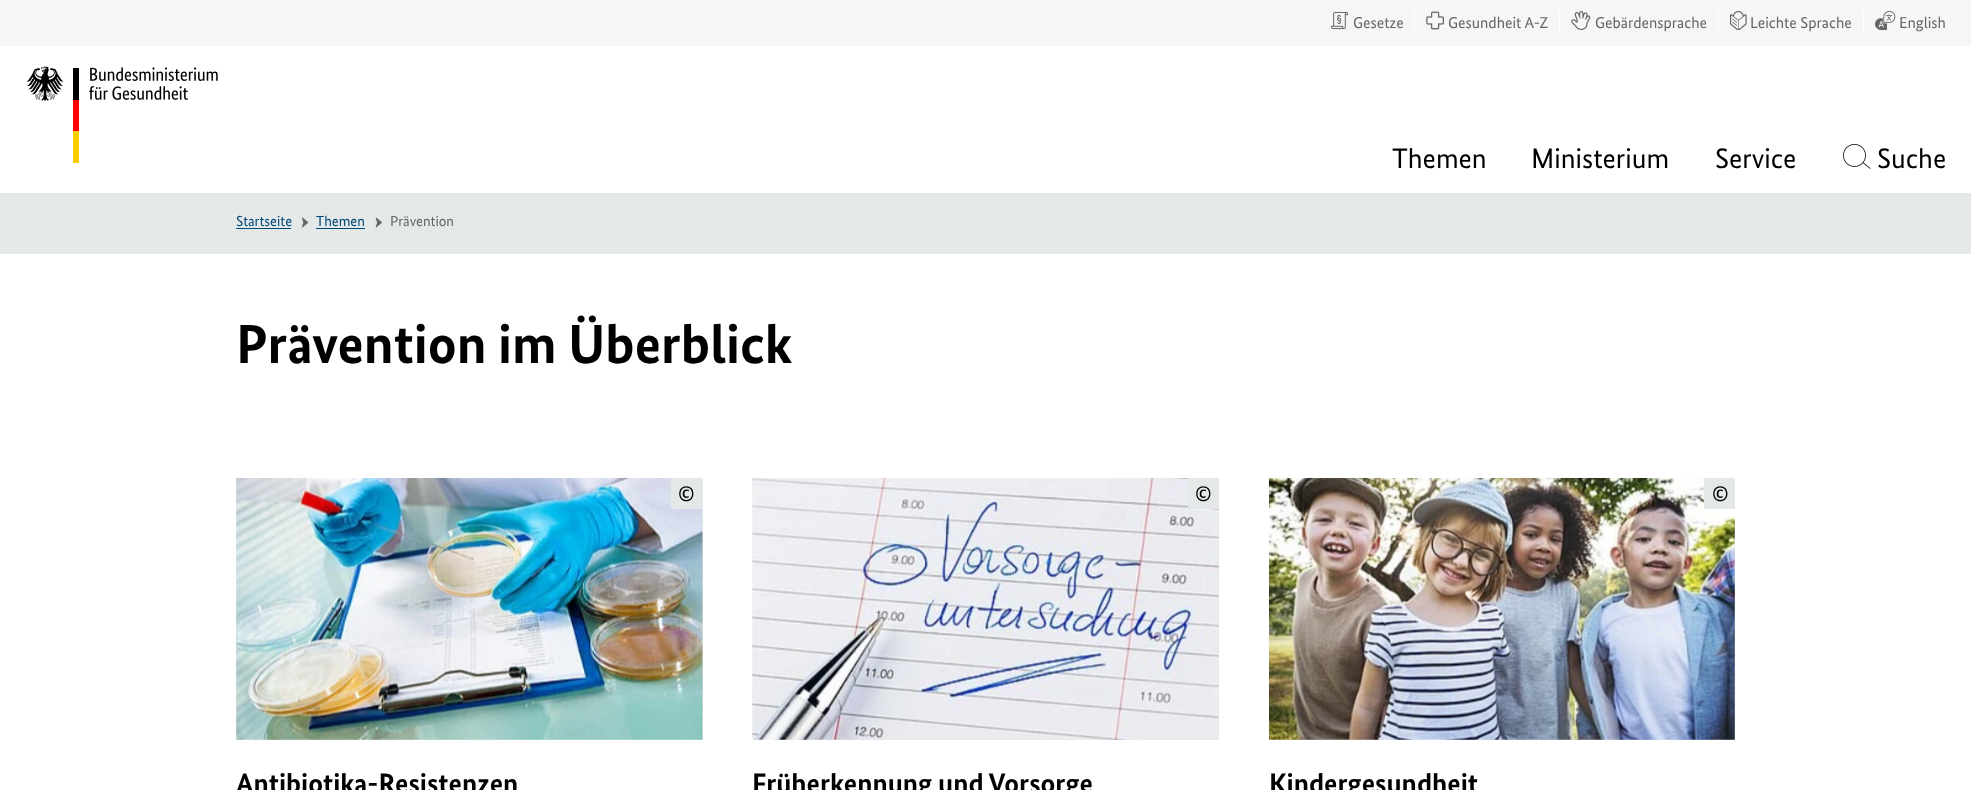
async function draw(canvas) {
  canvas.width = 1971
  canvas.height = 790
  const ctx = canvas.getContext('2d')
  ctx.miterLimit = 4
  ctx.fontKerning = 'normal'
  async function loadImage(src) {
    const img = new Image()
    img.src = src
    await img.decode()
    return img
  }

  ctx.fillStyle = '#fff'
  ctx.fillRect(0, 0, 1971, 790)
  ctx.fillStyle = '#f5f6f7'
  ctx.fillRect(0, 0, 1971, 46)
  ctx.drawImage(await loadImage('image0.png'), 1330, 11, 19, 19)
  ctx.font = '15.75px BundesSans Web'
  ctx.fillStyle = '#666'
  ctx.fillText('Gesetze', 1353, 28)
  ctx.fillStyle = '#fff'
  ctx.fillRect(1414, 11, 1, 24)
  ctx.drawImage(await loadImage('image1.png'), 1426, 11, 18, 19)
  ctx.fillStyle = '#666'
  ctx.fillText('Gesundheit A-Z', 1448, 28)
  ctx.fillStyle = '#fff'
  ctx.fillRect(1559, 11, 1, 24)
  ctx.drawImage(await loadImage('image2.png'), 1571, 11, 20, 19)
  ctx.fillStyle = '#666'
  ctx.fillText('Gebärdensprache', 1595, 28)
  ctx.fillStyle = '#fff'
  ctx.fillRect(1718, 11, 1, 24)
  ctx.drawImage(await loadImage('image3.png'), 1730, 11, 17, 19)
  ctx.fillStyle = '#666'
  ctx.fillText('Leichte Sprache', 1750, 28)
  ctx.fillStyle = '#fff'
  ctx.fillRect(1863, 11, 1, 24)
  ctx.drawImage(await loadImage('image4.png'), 1875, 11, 21, 19)
  ctx.fillStyle = '#666'
  ctx.fillText('English', 1899, 28)
  ctx.drawImage(await loadImage('image5.png'), 26, 66, 192, 97)
  ctx.font = '28.1px BundesSans Web'
  ctx.fillStyle = '#000'
  ctx.fillText('Themen', 1392, 168)
  ctx.fillText('Ministerium', 1531, 168)
  ctx.fillText('Service', 1715, 168)
  ctx.drawImage(await loadImage('image6.png'), 1843, 144, 28, 25)
  ctx.fillText('Suche', 1877, 168)
  ctx.fillStyle = '#e5e8e9'
  ctx.fillRect(0, 193, 1971, 61)
  ctx.font = '14.5px BundesSans Web'
  ctx.fillStyle = '#004a78'
  ctx.fillText('Startseite', 236, 226)
  ctx.fillRect(236, 228, 55, 1)
  ctx.drawImage(await loadImage('image7.png'), 302, 217, 7, 11)
  ctx.fillText('Themen', 316, 226)
  ctx.fillRect(316, 228, 49, 1)
  ctx.drawImage(await loadImage('image8.png'), 375, 217, 7, 11)
  ctx.fillStyle = '#666'
  ctx.fillText('Prävention', 390, 226)
  ctx.font = 'bold 55px BundesSans Web'
  ctx.fillStyle = '#000'
  ctx.fillText('Prävention im Überblick', 236, 363)
  ctx.fillStyle = '#e5e8e9'
  ctx.fillRect(236, 478, 467, 262)
  ctx.drawImage(await loadImage('image9.png'), 236, 478, 467, 262)
  ctx.fillRect(671, 478, 32, 31)
  ctx.font = '21px BundesSans Web'
  ctx.fillStyle = '#000'
  ctx.fillText('©', 678, 501)
  ctx.font = 'bold 28.1px BundesSans Web'
  ctx.fillText('Antibiotika-Resistenzen', 236, 793)
  ctx.fillStyle = '#e5e8e9'
  ctx.fillRect(753, 478, 466, 262)
  ctx.drawImage(await loadImage('image10.png'), 752, 478, 467, 262)
  ctx.fillRect(1188, 478, 31, 31)
  ctx.font = '21px BundesSans Web'
  ctx.fillStyle = '#000'
  ctx.fillText('©', 1195, 501)
  ctx.font = 'bold 28.1px BundesSans Web'
  ctx.fillText('Früherkennung und Vorsorge', 752, 793)
  ctx.fillStyle = '#e5e8e9'
  ctx.fillRect(1269, 509, 466, 231)
  ctx.drawImage(await loadImage('image11.png'), 1269, 478, 466, 262)
  ctx.fillRect(1704, 478, 31, 31)
  ctx.font = '21px BundesSans Web'
  ctx.fillStyle = '#000'
  ctx.fillText('©', 1712, 501)
  ctx.font = 'bold 28.1px BundesSans Web'
  ctx.fillText('Kindergesundheit', 1269, 793)
}

draw(document.querySelector('canvas'))
